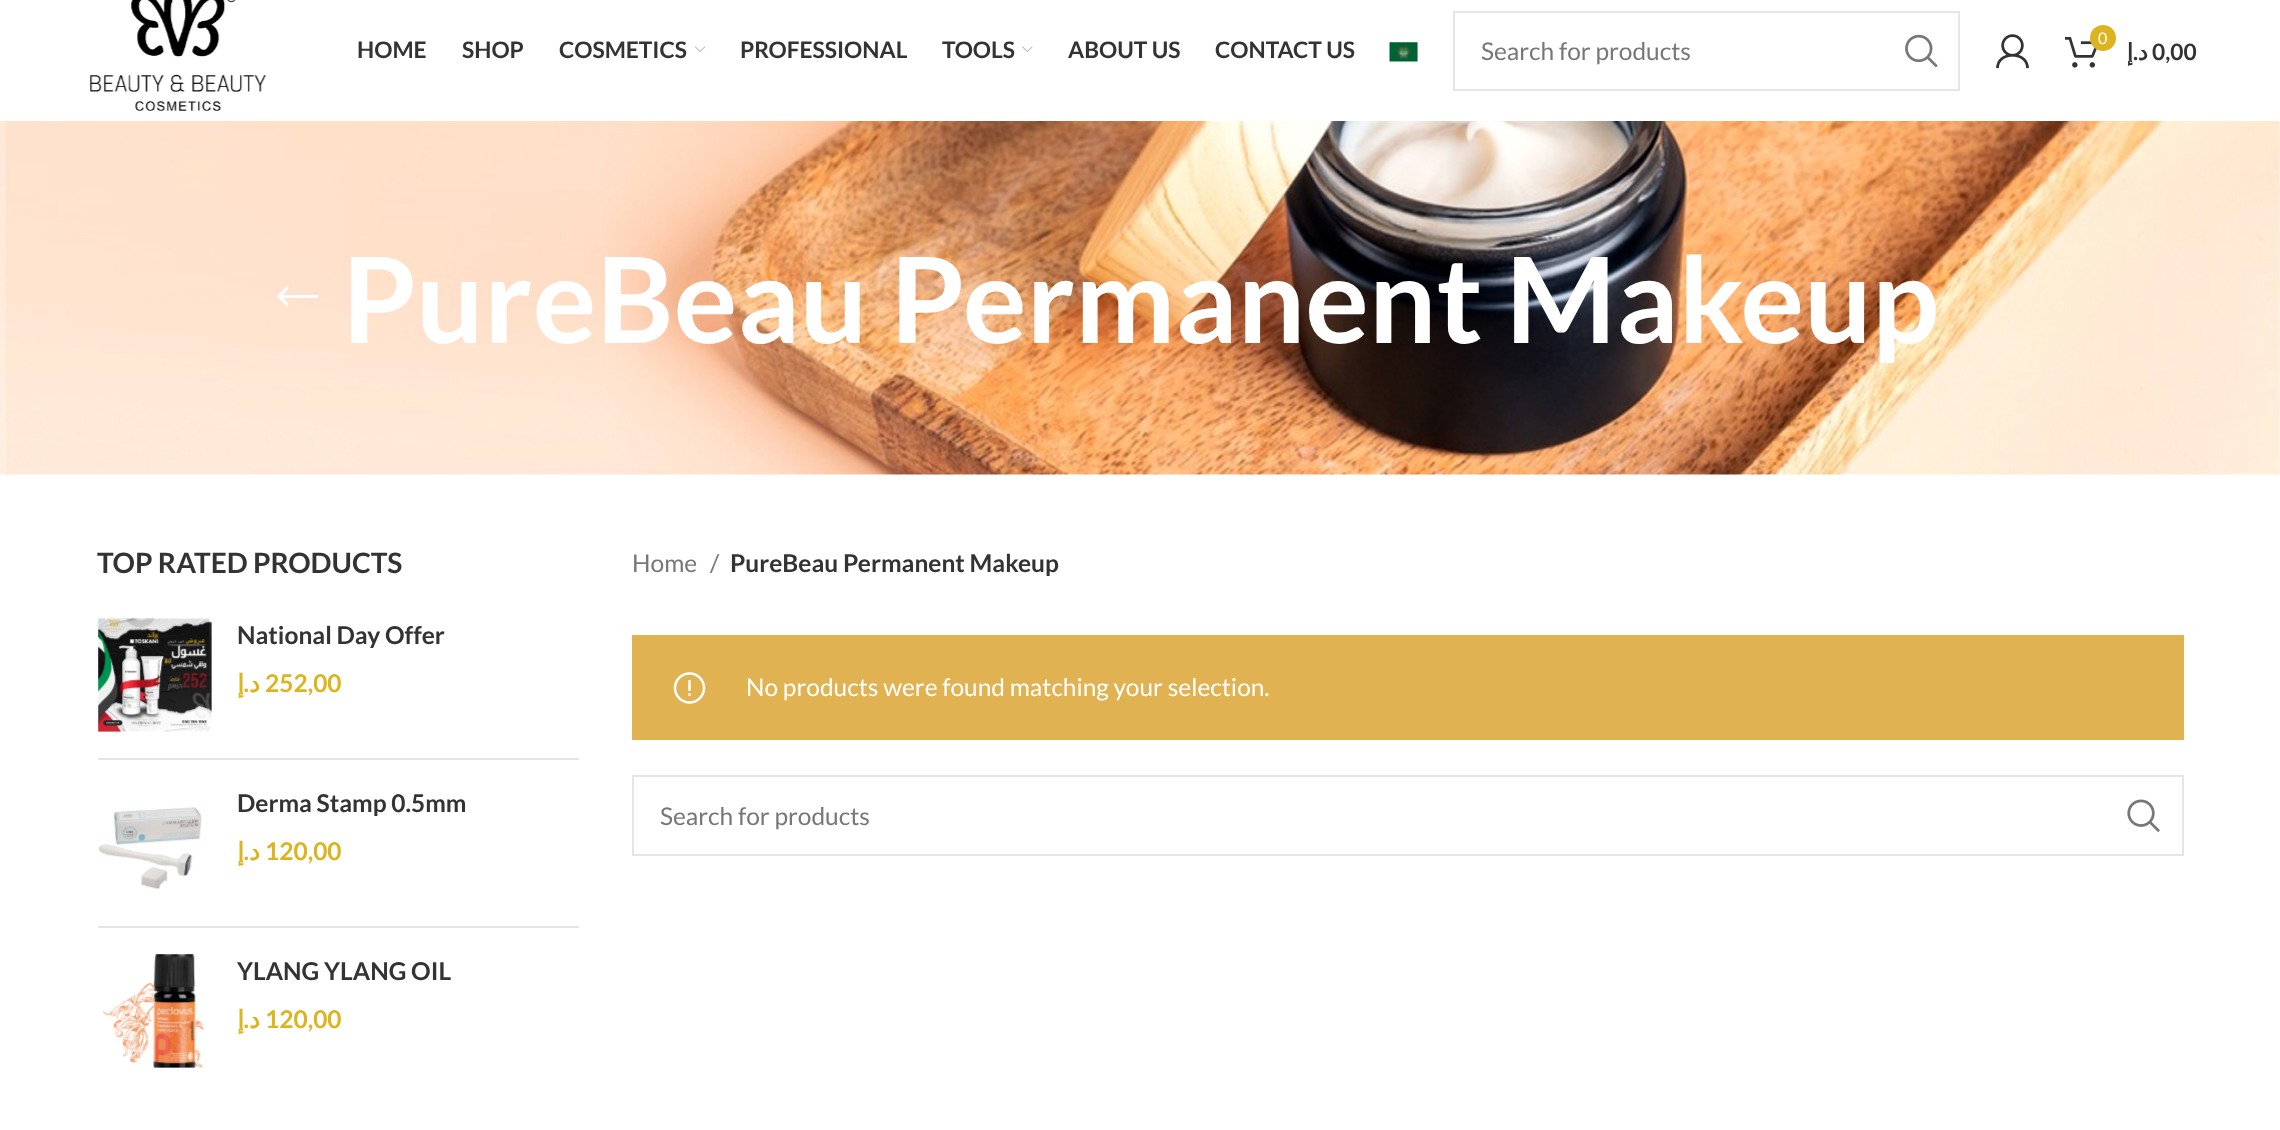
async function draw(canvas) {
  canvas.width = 2280
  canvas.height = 1130
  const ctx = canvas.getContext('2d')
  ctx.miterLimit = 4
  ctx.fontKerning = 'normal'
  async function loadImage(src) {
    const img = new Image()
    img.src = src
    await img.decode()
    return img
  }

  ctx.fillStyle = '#fff'
  ctx.fillRect(0, 0, 2280, 1130)
  ctx.drawImage(await loadImage('image0.png'), 90, 0, 177, 111)
  ctx.font = 'bold 22.75px Lato'
  ctx.fillStyle = '#333'
  ctx.fillText('HOME', 357, 58)
  ctx.fillText('SHOP', 462, 58)
  ctx.fillText('COSMETICS', 559, 58)
  ctx.drawImage(await loadImage('image1.png'), 695, 46, 11, 6)
  ctx.fillText('PROFESSIONAL', 740, 58)
  ctx.fillText('TOOLS', 942, 58)
  ctx.drawImage(await loadImage('image2.png'), 1022, 46, 11, 7)
  ctx.fillText('ABOUT US', 1068, 58)
  ctx.fillText('CONTACT US', 1215, 58)
  ctx.drawImage(await loadImage('image3.png'), 1389, 42, 29, 20)
  ctx.strokeStyle = '#e6e6e6'
  ctx.lineWidth = 2
  ctx.strokeRect(1454, 12, 505, 78)
  ctx.font = '24.5px Lato'
  ctx.fillStyle = '#777'
  ctx.fillText('Search for products', 1481, 60)
  ctx.drawImage(await loadImage('image4.png'), 1905, 34, 33, 34)
  ctx.drawImage(await loadImage('image5.png'), 1996, 34, 33, 35)
  ctx.drawImage(await loadImage('image6.png'), 2065, 37, 32, 31)
  ctx.fillStyle = '#dbb420'
  ctx.beginPath()
  ctx.arc(2103, 38, 13, 0, 2 * Math.PI)
  ctx.fill()
  ctx.font = '16px Lato'
  ctx.fillStyle = '#fff'
  ctx.fillText('0', 2098, 44)
  ctx.direction = 'rtl'
  ctx.font = 'bold 22.75px DejaVu Sans'
  ctx.fillStyle = '#333'
  ctx.fillText('إ', 2133, 60)
  ctx.font = 'bold 22.75px Lato'
  ctx.fillText('.', 2138, 60)
  ctx.font = 'bold 22.75px DejaVu Sans'
  ctx.fillText('د', 2148, 60)
  ctx.direction = 'ltr'
  ctx.font = 'bold 22.75px Lato'
  ctx.fillText('0,00', 2152, 60)
  ctx.drawImage(await loadImage('image7.png'), 0, 121, 2280, 354)
  ctx.fillStyle = '#fff'
  ctx.beginPath()
  ctx.moveTo(289, 304)
  ctx.lineTo(283, 298)
  ctx.lineTo(318, 298)
  ctx.lineTo(318, 295)
  ctx.lineTo(283, 295)
  ctx.lineTo(289, 288)
  ctx.lineTo(287, 286)
  ctx.lineTo(277, 296)
  ctx.lineTo(287, 307)
  ctx.closePath()
  ctx.fill()
  ctx.font = 'bold 119px Lato'
  ctx.fillText('PureBeau Permanent Makeup', 342, 343)
  ctx.font = 'bold 28px Lato'
  ctx.fillStyle = '#333'
  ctx.fillText('TOP RATED PRODUCTS', 97, 573)
  ctx.fillStyle = '#e4e4e4'
  ctx.fillRect(98, 758, 481, 2)
  ctx.drawImage(await loadImage('image8.png'), 98, 618, 114, 114)
  ctx.font = 'bold 24.5px Lato'
  ctx.fillStyle = '#333'
  ctx.fillText('National Day Offer', 237, 644)
  ctx.direction = 'rtl'
  ctx.font = 'bold 24.5px DejaVu Sans'
  ctx.fillStyle = '#dbb420'
  ctx.fillText('إ', 244, 692)
  ctx.font = 'bold 24.5px Lato'
  ctx.fillText('.', 249, 692)
  ctx.font = 'bold 24.5px DejaVu Sans'
  ctx.fillText('د', 260, 692)
  ctx.direction = 'ltr'
  ctx.font = 'bold 24.5px Lato'
  ctx.fillText('252,00', 265, 692)
  ctx.fillStyle = '#e4e4e4'
  ctx.fillRect(98, 926, 481, 2)
  ctx.drawImage(await loadImage('image9.png'), 98, 807, 104, 83)
  ctx.fillStyle = '#333'
  ctx.fillText('Derma Stamp 0.5mm', 237, 812)
  ctx.direction = 'rtl'
  ctx.font = 'bold 24.5px DejaVu Sans'
  ctx.fillStyle = '#dbb420'
  ctx.fillText('إ', 244, 860)
  ctx.font = 'bold 24.5px Lato'
  ctx.fillText('.', 249, 860)
  ctx.font = 'bold 24.5px DejaVu Sans'
  ctx.fillText('د', 260, 860)
  ctx.direction = 'ltr'
  ctx.font = 'bold 24.5px Lato'
  ctx.fillText('120,00', 265, 860)
  ctx.drawImage(await loadImage('image10.png'), 103, 954, 102, 114)
  ctx.fillStyle = '#333'
  ctx.fillText('YLANG YLANG OIL', 237, 980)
  ctx.direction = 'rtl'
  ctx.font = 'bold 24.5px DejaVu Sans'
  ctx.fillStyle = '#dbb420'
  ctx.fillText('إ', 244, 1028)
  ctx.font = 'bold 24.5px Lato'
  ctx.fillText('.', 249, 1028)
  ctx.font = 'bold 24.5px DejaVu Sans'
  ctx.fillText('د', 260, 1028)
  ctx.direction = 'ltr'
  ctx.font = 'bold 24.5px Lato'
  ctx.fillText('120,00', 265, 1028)
  ctx.font = '24.5px Lato'
  ctx.fillStyle = '#777'
  ctx.fillText('Home', 632, 572)
  ctx.fillText('/', 710, 572)
  ctx.font = 'bold 24.5px Lato'
  ctx.fillStyle = '#333'
  ctx.fillText('PureBeau Permanent Makeup', 730, 572)
  ctx.fillStyle = '#e0b252'
  ctx.fillRect(632, 635, 1552, 105)
  ctx.drawImage(await loadImage('image11.png'), 673, 672, 33, 32)
  ctx.font = '24.5px Lato'
  ctx.fillStyle = '#fff'
  ctx.fillText('No products were found matching your selection.', 746, 696)
  ctx.strokeRect(633, 776, 1550, 79)
  ctx.fillStyle = '#777'
  ctx.fillText('Search for products', 660, 825)
  ctx.drawImage(await loadImage('image12.png'), 2127, 799, 33, 34)
}

draw(document.querySelector('canvas'))
